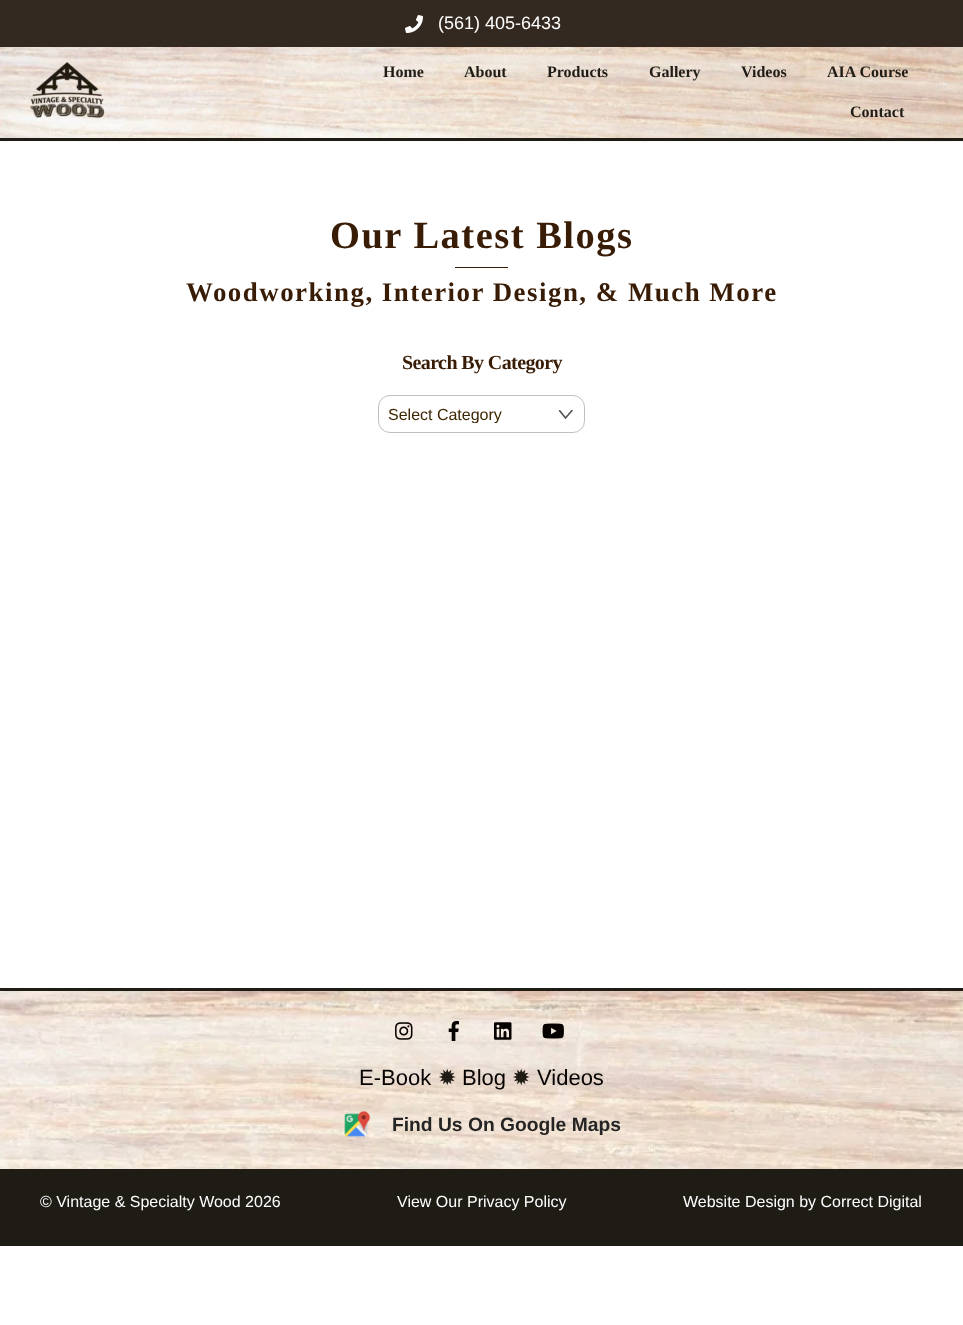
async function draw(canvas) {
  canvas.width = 963
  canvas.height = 1325
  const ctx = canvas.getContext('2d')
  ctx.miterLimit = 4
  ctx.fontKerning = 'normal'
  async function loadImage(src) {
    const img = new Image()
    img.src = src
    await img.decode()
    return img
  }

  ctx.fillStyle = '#fff'
  ctx.fillRect(0, 0, 963, 1325)
  ctx.fillStyle = '#332921'
  ctx.fillRect(0, 0, 963, 47)
  ctx.drawImage(await loadImage('image0.png'), 405, 15, 18, 18)
  ctx.font = '18px Liberation Sans'
  ctx.fillStyle = '#fff'
  ctx.fillText('(561) 405-6433', 438, 29)
  ctx.drawImage(await loadImage('image1.png'), 0, 47, 963, 95)
  ctx.fillStyle = '#1f1c16'
  ctx.fillRect(0, 138, 963, 3)
  ctx.drawImage(await loadImage('image2.png'), 30, 62, 75, 56)
  ctx.font = 'bold 16px Liberation Serif'
  ctx.fillText('Home', 383, 77)
  ctx.fillText('About', 464, 77)
  ctx.fillText('Products', 547, 77)
  ctx.fillText('Gallery', 649, 77)
  ctx.fillText('Videos', 741, 77)
  ctx.fillText('AIA Course', 827, 77)
  ctx.fillText('Contact', 850, 117)
  ctx.letterSpacing = '1.5px'
  ctx.font = 'bold 38.5px Liberation Serif'
  ctx.fillStyle = '#381c05'
  ctx.fillText('Our Latest Blogs', 330, 248)
  ctx.fillRect(455, 267, 53, 1)
  ctx.font = 'bold 26.9px Liberation Serif'
  ctx.fillText('Woodworking, Interior Design, & Much More', 186, 301)
  ctx.letterSpacing = '-0.6px'
  ctx.font = 'bold 20px Liberation Serif'
  ctx.fillText('Search By Category', 402, 369)
  ctx.save()
  ctx.beginPath()
  ctx.rect(559, 410, 14, 13)
  ctx.clip()
  ctx.beginPath()
  ctx.moveTo(559.5, 410.5)
  ctx.lineTo(565.5, 418)
  ctx.lineTo(572, 410.5)
  ctx.strokeStyle = '#535353'
  ctx.lineWidth = 1.6
  ctx.lineCap = 'round'
  ctx.stroke()
  ctx.restore()
  ctx.beginPath()
  ctx.roundRect(378.5, 395.5, 206, 37, 11.5)
  ctx.strokeStyle = '#bfbfbf'
  ctx.stroke()
  ctx.save()
  ctx.beginPath()
  ctx.rect(388, 406, 164, 17)
  ctx.clip()
  ctx.letterSpacing = '0px'
  ctx.font = '16px Liberation Sans'
  ctx.fillStyle = '#3d2702'
  ctx.fillText('Select Category', 388, 420)
  ctx.restore()
  ctx.drawImage(await loadImage('image3.png'), 0, 991, 963, 178)
  ctx.fillStyle = '#1f1c16'
  ctx.fillRect(0, 988, 963, 3)
  ctx.drawImage(await loadImage('image4.png'), 395, 1022, 18, 18)
  ctx.drawImage(await loadImage('image5.png'), 448, 1021, 11, 20)
  ctx.drawImage(await loadImage('image6.png'), 494, 1022, 18, 18)
  ctx.drawImage(await loadImage('image7.png'), 542, 1023, 22, 16)
  ctx.letterSpacing = '0px'
  ctx.font = '22px Liberation Sans'
  ctx.fillStyle = '#050200'
  ctx.fillText('E-Book', 359, 1085)
  ctx.font = '22px DejaVu Sans'
  ctx.fillStyle = '#1f1c16'
  ctx.fillText('✹', 438, 1085)
  ctx.font = '22px Liberation Sans'
  ctx.fillStyle = '#050200'
  ctx.fillText('Blog', 462, 1085)
  ctx.font = '22px DejaVu Sans'
  ctx.fillStyle = '#1f1c16'
  ctx.fillText('✹', 512, 1085)
  ctx.font = '22px Liberation Sans'
  ctx.fillStyle = '#050200'
  ctx.fillText('Videos', 537, 1085)
  ctx.drawImage(await loadImage('image8.png'), 344, 1110, 27, 27)
  ctx.font = 'bold 19.25px Liberation Sans'
  ctx.fillStyle = '#242424'
  ctx.fillText('Find Us On Google Maps', 392, 1131)
  ctx.fillStyle = '#1f1c16'
  ctx.fillRect(0, 1169, 963, 77)
  ctx.font = '16px Liberation Sans'
  ctx.fillStyle = '#fff'
  ctx.fillText('© Vintage & Specialty Wood 2026', 40, 1207)
  ctx.fillText('View Our Privacy Policy', 397, 1207)
  ctx.fillText('Website Design by Correct Digital', 683, 1207)
}

draw(document.querySelector('canvas'))
